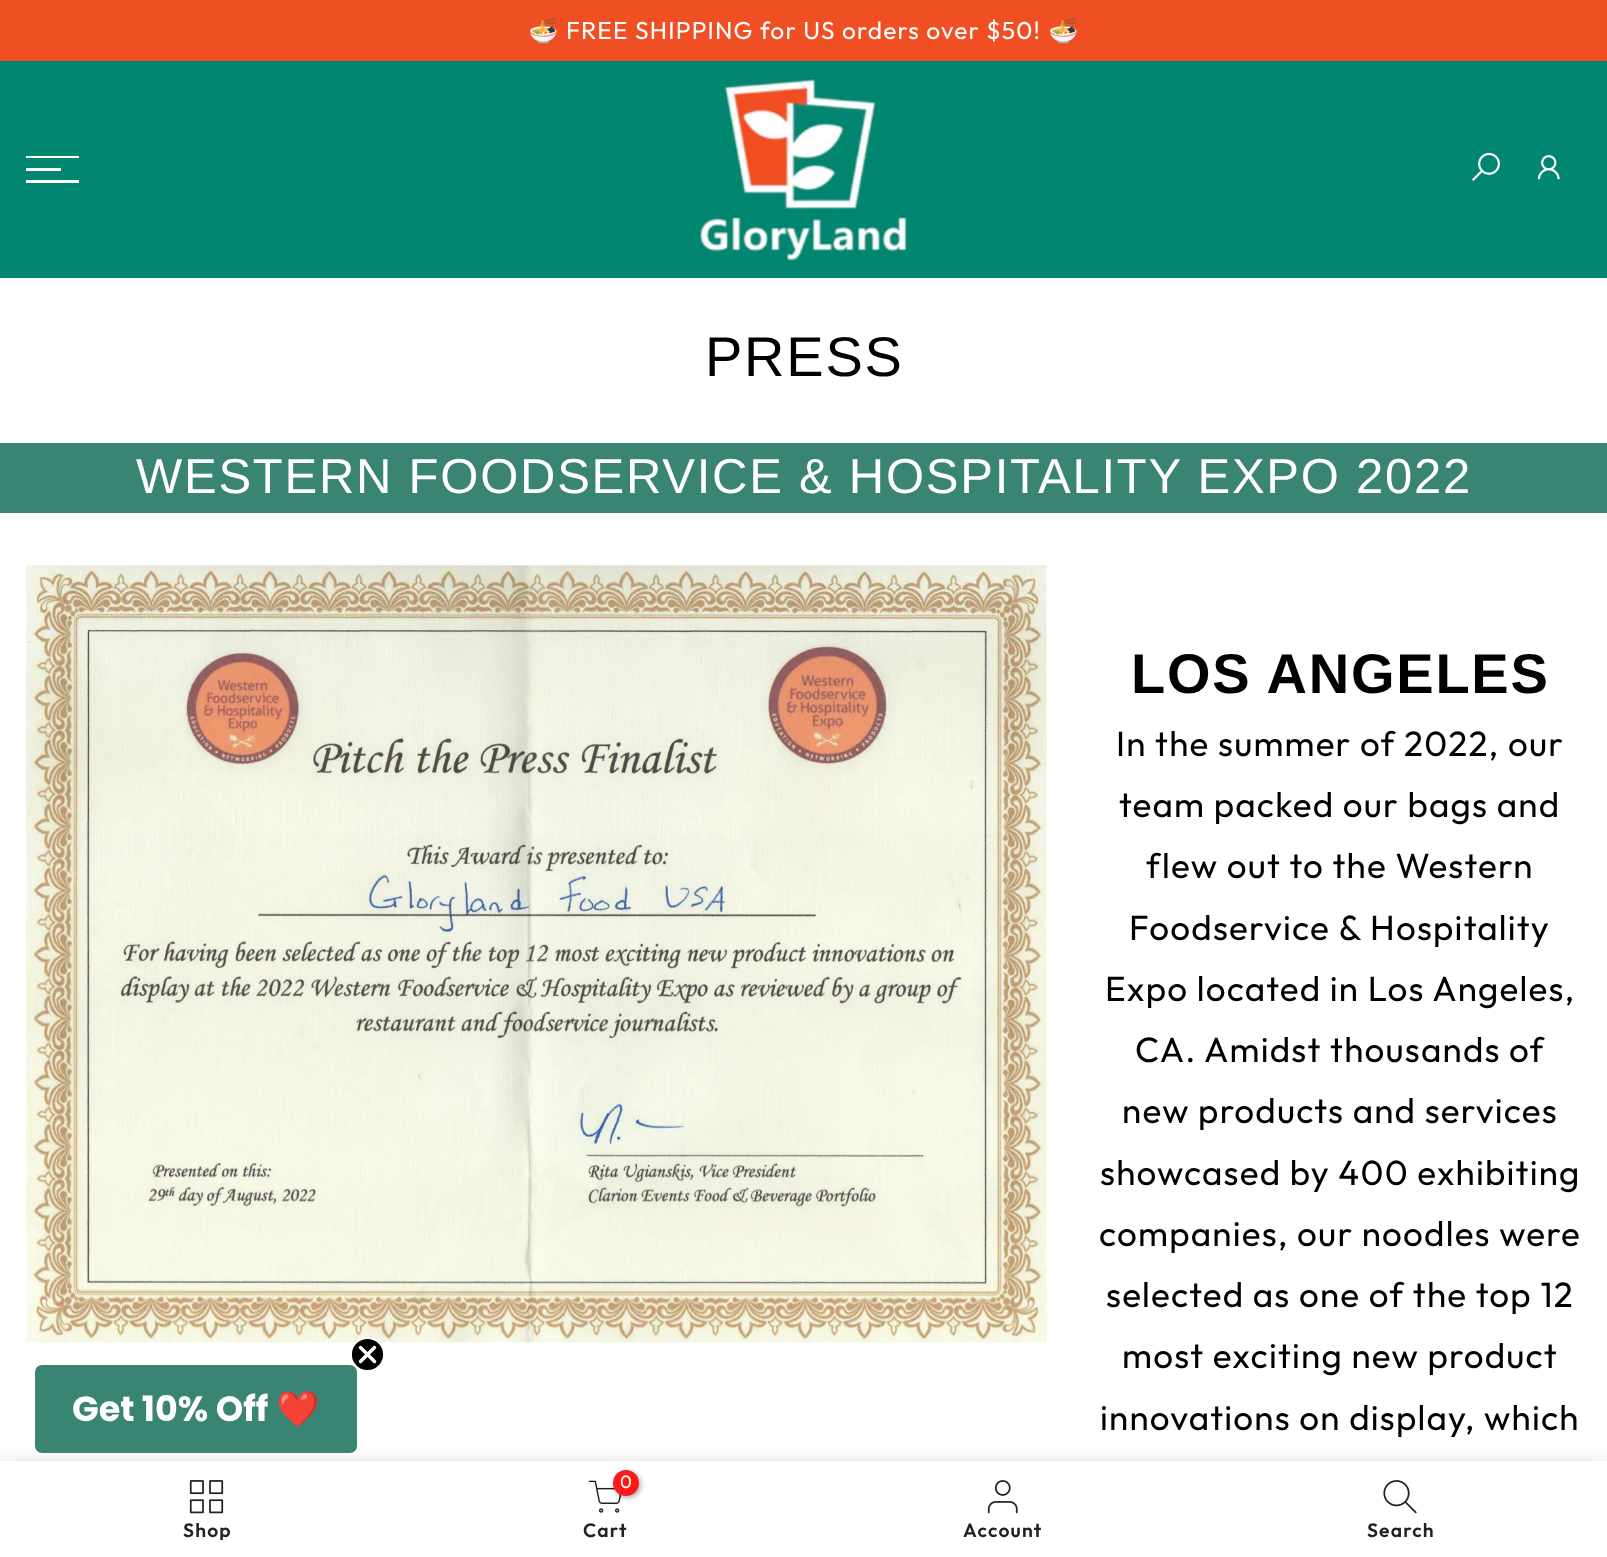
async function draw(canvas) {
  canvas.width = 1607
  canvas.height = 1557
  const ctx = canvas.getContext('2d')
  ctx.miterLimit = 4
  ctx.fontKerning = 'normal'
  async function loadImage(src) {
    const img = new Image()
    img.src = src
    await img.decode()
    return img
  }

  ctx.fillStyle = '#fff'
  ctx.fillRect(0, 0, 1607, 1557)
  ctx.fillStyle = '#f04e23'
  ctx.fillRect(0, 0, 1607, 61)
  ctx.letterSpacing = '1.2px'
  ctx.font = '24.5px Noto Color Emoji'
  ctx.fillStyle = '#fff'
  ctx.fillText('🍜', 528, 39)
  ctx.font = '24.5px Outfit'
  ctx.fillText('FREE SHIPPING for US orders over $50!', 566, 39)
  ctx.font = '24.5px Noto Color Emoji'
  ctx.fillText('🍜', 1048, 39)
  ctx.fillStyle = '#008671'
  ctx.fillRect(0, 61, 1607, 217)
  ctx.fillStyle = '#fff'
  ctx.fillRect(26, 156, 53, 2)
  ctx.fillRect(26, 168, 35, 3)
  ctx.fillRect(26, 180, 53, 3)
  ctx.drawImage(await loadImage('image0.png'), 698, 77, 210, 185)
  ctx.drawImage(await loadImage('image1.png'), 1471, 152, 29, 29)
  ctx.drawImage(await loadImage('image2.png'), 1537, 155, 23, 25)
  ctx.letterSpacing = '1.75px'
  ctx.font = '56px Liberation Sans'
  ctx.fillStyle = '#000'
  ctx.fillText('PRESS', 705, 376)
  ctx.fillStyle = '#398472'
  ctx.fillRect(0, 443, 1607, 70)
  ctx.font = '49px Liberation Sans'
  ctx.fillStyle = '#fff'
  ctx.fillText('WESTERN FOODSERVICE & HOSPITALITY EXPO 2022', 136, 493)
  ctx.drawImage(await loadImage('image3.png'), 26, 565, 1021, 778)
  ctx.font = 'bold 56px Liberation Sans'
  ctx.fillStyle = '#000'
  ctx.fillText('LOS ANGELES', 1131, 693)
  ctx.letterSpacing = '1.2px'
  ctx.font = '35px Outfit'
  ctx.fillText('In the summer of 2022, our', 1116, 756)
  ctx.fillText('team packed our bags and', 1119, 817)
  ctx.fillText('flew out to the Western', 1146, 878)
  ctx.fillText('Foodservice & Hospitality', 1129, 940)
  ctx.fillText('Expo located in Los Angeles,', 1105, 1001)
  ctx.fillText('CA. Amidst thousands of', 1135, 1062)
  ctx.fillText('new products and services', 1122, 1123)
  ctx.fillText('showcased by 400 exhibiting', 1100, 1185)
  ctx.fillText('companies, our noodles were', 1099, 1246)
  ctx.fillText('selected as one of the top 12', 1106, 1307)
  ctx.fillText('most exciting new product', 1122, 1368)
  ctx.fillText('innovations on display, which', 1100, 1430)
  ctx.fillStyle = '#0000001f'
  ctx.filter = 'blur(8px)'
  ctx.beginPath()
  ctx.rect(0, 1461, 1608, 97)
  ctx.fill()
  ctx.filter = 'none'
  ctx.fillStyle = '#398472'
  ctx.beginPath()
  ctx.roundRect(35, 1365, 322, 88, 7)
  ctx.fill()
  ctx.fillStyle = '#000'
  ctx.beginPath()
  ctx.arc(367.5, 1354.5, 16.5, 0, 2 * Math.PI)
  ctx.fill()
  ctx.strokeStyle = '#fff'
  ctx.lineWidth = 1.8
  ctx.stroke()
  ctx.beginPath()
  ctx.moveTo(360.5, 1347.5)
  ctx.lineTo(374.5, 1361.5)
  ctx.moveTo(360.5, 1361.5)
  ctx.lineTo(374.5, 1347.5)
  ctx.closePath()
  ctx.lineWidth = 3.5
  ctx.lineCap = 'round'
  ctx.lineJoin = 'round'
  ctx.stroke()
  ctx.letterSpacing = '0px'
  ctx.font = 'bold 35px Poppins'
  ctx.fillStyle = '#fff'
  ctx.fillText('Get 10% Off', 72, 1421)
  ctx.font = 'bold 35px Noto Color Emoji'
  ctx.fillText('❤️', 276, 1421)
  ctx.fillRect(0, 1461, 1607, 96)
  ctx.drawImage(await loadImage('image4.png'), 189, 1480, 35, 34)
  ctx.save()
  ctx.beginPath()
  ctx.rect(26, 1521, 363, 19)
  ctx.clip()
  ctx.letterSpacing = '1.2px'
  ctx.font = '600 19.25px Outfit'
  ctx.fillStyle = '#222'
  ctx.fillText('Shop', 183, 1537)
  ctx.restore()
  ctx.drawImage(await loadImage('image5.png'), 588, 1480, 33, 33)
  ctx.fillStyle = '#0000004d'
  ctx.filter = 'blur(2.5px)'
  ctx.beginPath()
  ctx.roundRect(614, 1472, 27, 26, 13)
  ctx.fill()
  ctx.filter = 'none'
  ctx.fillStyle = '#fc1919'
  ctx.beginPath()
  ctx.arc(626, 1483, 13, 0, 2 * Math.PI)
  ctx.fill()
  ctx.font = '18px Outfit'
  ctx.fillStyle = '#fff'
  ctx.fillText('0', 620, 1488)
  ctx.letterSpacing = '1.2px'
  ctx.font = '600 19.25px Outfit'
  ctx.fillStyle = '#222'
  ctx.fillText('Cart', 583, 1537)
  ctx.drawImage(await loadImage('image6.png'), 987, 1480, 31, 34)
  ctx.fillText('Account', 963, 1537)
  ctx.drawImage(await loadImage('image7.png'), 1383, 1480, 34, 34)
  ctx.fillText('Search', 1367, 1537)
}

draw(document.querySelector('canvas'))
